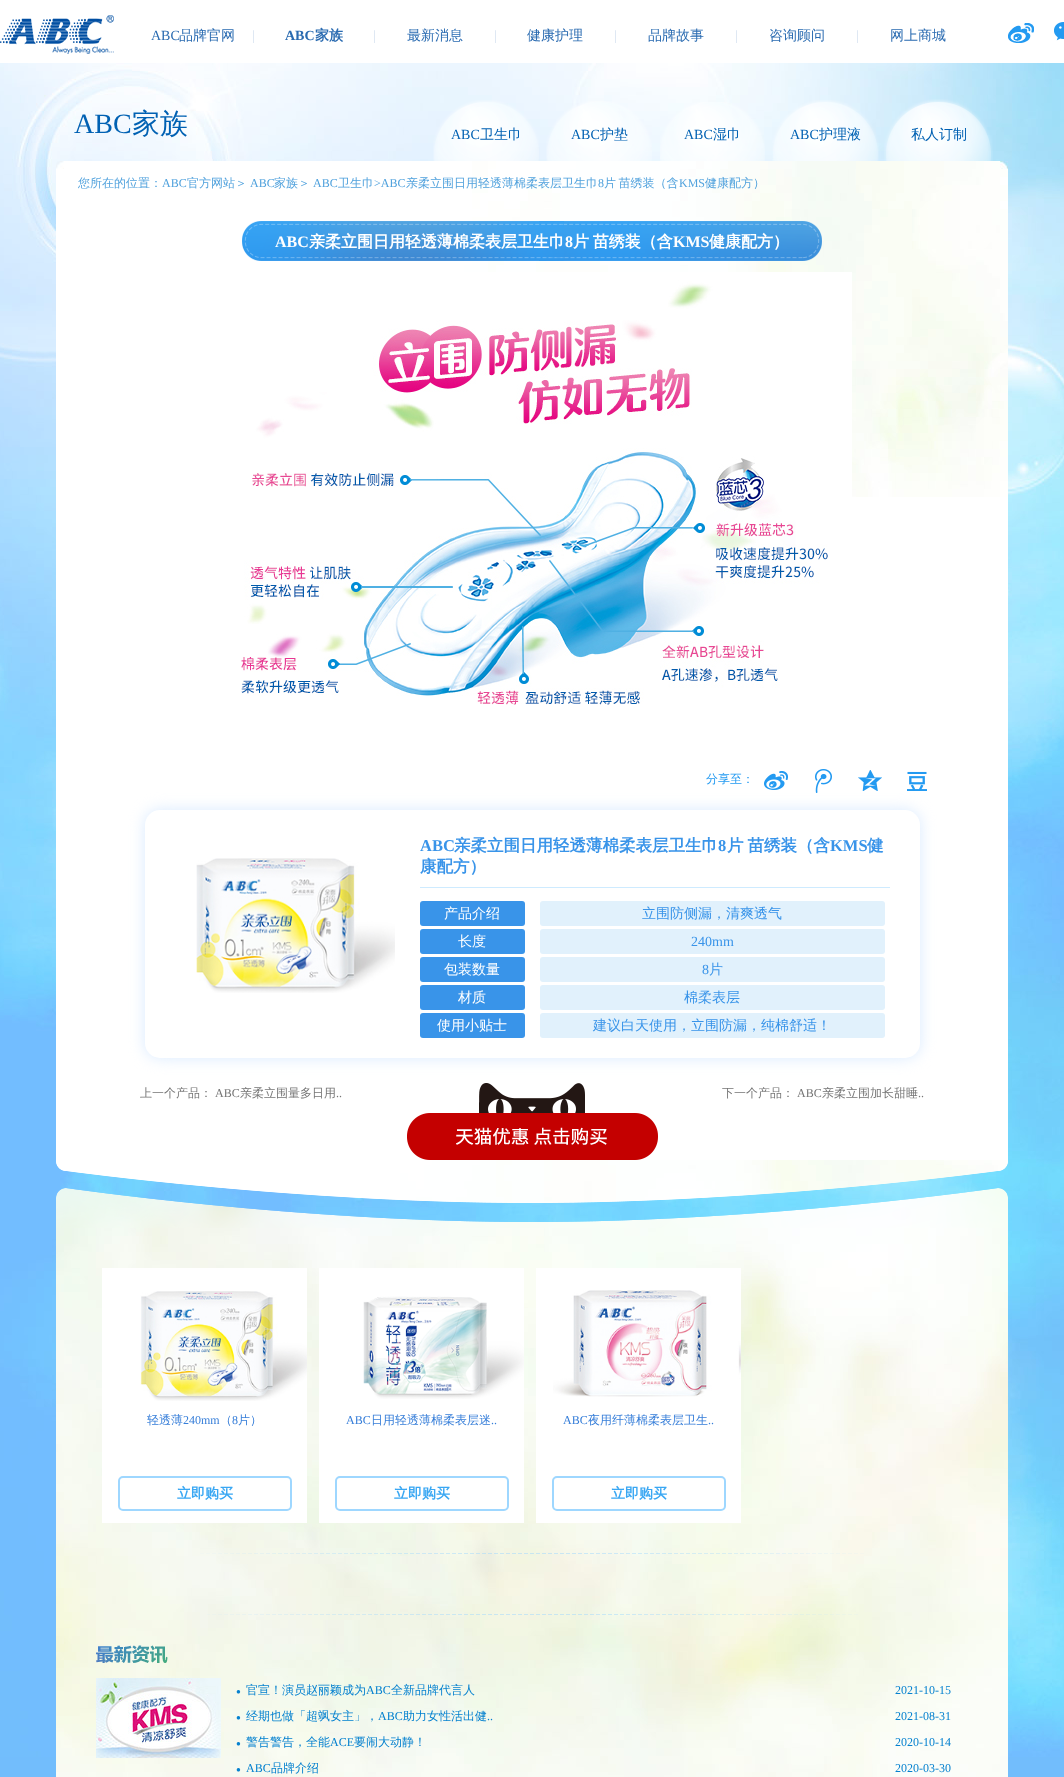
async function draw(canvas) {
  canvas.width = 1064
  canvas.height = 1777
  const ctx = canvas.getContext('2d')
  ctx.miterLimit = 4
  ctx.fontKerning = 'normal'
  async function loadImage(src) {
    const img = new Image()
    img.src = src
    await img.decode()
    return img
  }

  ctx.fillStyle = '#72bdfc'
  ctx.fillRect(0, 0, 1064, 1777)
  ctx.fillStyle = '#fff'
  ctx.fillRect(0, 0, 1064, 63)
  ctx.drawImage(await loadImage('image0.png'), 0, 15, 114, 39)
  ctx.font = '14px Liberation Serif'
  ctx.fillStyle = '#2a6bb1'
  ctx.fillText('ABC', 151, 40)
  ctx.font = '500 14px WenQuanYi Zen Hei'
  ctx.fillText('品牌官网', 179, 40)
  ctx.font = '14px Liberation Serif'
  ctx.fillStyle = '#d4e1ef'
  ctx.fillText('|', 252, 40)
  ctx.font = 'bold 14px Liberation Serif'
  ctx.fillStyle = '#2a6bb1'
  ctx.fillText('ABC', 285, 40)
  ctx.font = 'bold 14px WenQuanYi Zen Hei'
  ctx.fillText('家族', 315, 40)
  ctx.font = '14px Liberation Serif'
  ctx.fillStyle = '#d4e1ef'
  ctx.fillText('|', 373, 40)
  ctx.font = '500 14px WenQuanYi Zen Hei'
  ctx.fillStyle = '#2a6bb1'
  ctx.fillText('最新消息', 407, 40)
  ctx.font = '14px Liberation Serif'
  ctx.fillStyle = '#d4e1ef'
  ctx.fillText('|', 494, 40)
  ctx.font = '500 14px WenQuanYi Zen Hei'
  ctx.fillStyle = '#2a6bb1'
  ctx.fillText('健康护理', 527, 40)
  ctx.font = '14px Liberation Serif'
  ctx.fillStyle = '#d4e1ef'
  ctx.fillText('|', 614, 40)
  ctx.font = '500 14px WenQuanYi Zen Hei'
  ctx.fillStyle = '#2a6bb1'
  ctx.fillText('品牌故事', 648, 40)
  ctx.font = '14px Liberation Serif'
  ctx.fillStyle = '#d4e1ef'
  ctx.fillText('|', 735, 40)
  ctx.font = '500 14px WenQuanYi Zen Hei'
  ctx.fillStyle = '#2a6bb1'
  ctx.fillText('咨询顾问', 769, 40)
  ctx.font = '14px Liberation Serif'
  ctx.fillStyle = '#d4e1ef'
  ctx.fillText('|', 856, 40)
  ctx.font = '500 14px WenQuanYi Zen Hei'
  ctx.fillStyle = '#2a6bb1'
  ctx.fillText('网上商城', 890, 40)
  ctx.drawImage(await loadImage('image1.png'), 1008, 23, 26, 20)
  ctx.drawImage(await loadImage('image2.png'), 1054, 22, 10, 19)
  ctx.drawImage(await loadImage('image3.png'), 0, 63, 1064, 1694)
  ctx.font = '28px Liberation Serif'
  ctx.fillStyle = '#0061b3'
  ctx.fillText('ABC', 74, 133)
  ctx.font = '500 28px WenQuanYi Zen Hei'
  ctx.fillText('家族', 132, 133)
  ctx.drawImage(await loadImage('image4.png'), 433, 100, 106, 61)
  ctx.font = '14px Liberation Serif'
  ctx.fillText('ABC', 451, 139)
  ctx.font = '500 14px WenQuanYi Zen Hei'
  ctx.fillText('卫生巾', 480, 139)
  ctx.drawImage(await loadImage('image5.png'), 546, 101, 106, 60)
  ctx.font = '14px Liberation Serif'
  ctx.fillText('ABC', 571, 139)
  ctx.font = '500 14px WenQuanYi Zen Hei'
  ctx.fillText('护垫', 600, 139)
  ctx.drawImage(await loadImage('image6.png'), 660, 102, 105, 59)
  ctx.font = '14px Liberation Serif'
  ctx.fillText('ABC', 684, 139)
  ctx.font = '500 14px WenQuanYi Zen Hei'
  ctx.fillText('湿巾', 713, 139)
  ctx.drawImage(await loadImage('image7.png'), 772, 100, 107, 61)
  ctx.font = '14px Liberation Serif'
  ctx.fillText('ABC', 790, 139)
  ctx.font = '500 14px WenQuanYi Zen Hei'
  ctx.fillText('护理液', 819, 139)
  ctx.drawImage(await loadImage('image8.png'), 884, 99, 109, 62)
  ctx.fillText('私人订制', 911, 139)
  ctx.drawImage(await loadImage('image9.png'), 56, 161, 952, 336)
  ctx.font = '500 12px WenQuanYi Zen Hei'
  ctx.fillStyle = '#51a2dd'
  ctx.fillText('您所在的位置：', 78, 187)
  ctx.font = '12px Liberation Serif'
  ctx.fillText('ABC', 162, 187)
  ctx.font = '500 12px WenQuanYi Zen Hei'
  ctx.fillText('官方网站＞', 187, 187)
  ctx.font = '12px Liberation Serif'
  ctx.fillText('ABC', 250, 187)
  ctx.font = '500 12px WenQuanYi Zen Hei'
  ctx.fillText('家族＞', 274, 187)
  ctx.font = '12px Liberation Serif'
  ctx.fillText('ABC', 313, 187)
  ctx.font = '500 12px WenQuanYi Zen Hei'
  ctx.fillText('卫生巾', 338, 187)
  ctx.font = '12px Liberation Serif'
  ctx.fillText('>ABC', 374, 187)
  ctx.font = '500 12px WenQuanYi Zen Hei'
  ctx.fillText('亲柔立围日用轻透薄棉柔表层卫生巾', 406, 187)
  ctx.font = '12px Liberation Serif'
  ctx.fillText('8', 598, 187)
  ctx.wordSpacing = '-1px'
  ctx.font = '500 12px WenQuanYi Zen Hei'
  ctx.fillText('片 苗绣装（含', 604, 187)
  ctx.wordSpacing = '0px'
  ctx.font = '12px Liberation Serif'
  ctx.fillText('KMS', 679, 187)
  ctx.font = '500 12px WenQuanYi Zen Hei'
  ctx.fillText('健康配方）', 705, 187)
  ctx.fillStyle = '#fff'
  ctx.fillRect(56, 497, 952, 663)
  ctx.drawImage(await loadImage('image10.png'), 242, 221, 580, 40)
  ctx.font = 'bold 16px Liberation Serif'
  ctx.fillText('ABC', 275, 247)
  ctx.font = 'bold 16px WenQuanYi Zen Hei'
  ctx.fillText('亲柔立围日用轻透薄棉柔表层卫生巾', 309, 247)
  ctx.font = 'bold 16px Liberation Serif'
  ctx.fillText('8', 565, 247)
  ctx.wordSpacing = '-1px'
  ctx.font = 'bold 16px WenQuanYi Zen Hei'
  ctx.fillText('片 苗绣装（含', 573, 247)
  ctx.wordSpacing = '0px'
  ctx.font = 'bold 16px Liberation Serif'
  ctx.fillText('KMS', 673, 247)
  ctx.font = 'bold 16px WenQuanYi Zen Hei'
  ctx.fillText('健康配方）', 709, 247)
  ctx.drawImage(await loadImage('image11.png'), 241, 272, 611, 433)
  ctx.font = '500 12px WenQuanYi Zen Hei'
  ctx.fillStyle = '#239af1'
  ctx.fillText('分享至：', 706, 783)
  ctx.fillStyle = '#d9eaff'
  ctx.filter = 'blur(7.5px)'
  ctx.beginPath()
  ctx.roundRect(145, 810, 775, 248, 15)
  ctx.fill()
  ctx.filter = 'none'
  ctx.drawImage(await loadImage('image12.png'), 764, 771, 24, 19)
  ctx.drawImage(await loadImage('image13.png'), 815, 769, 17, 24)
  ctx.drawImage(await loadImage('image14.png'), 858, 770, 24, 21)
  ctx.drawImage(await loadImage('image15.png'), 907, 771, 20, 20)
  ctx.fillStyle = '#fff'
  ctx.beginPath()
  ctx.roundRect(145, 810, 775, 248, 15)
  ctx.fill()
  ctx.drawImage(await loadImage('image16.png'), 196, 858, 199, 135)
  ctx.fillStyle = '#ceebff'
  ctx.fillRect(420, 887, 470, 1)
  ctx.font = 'bold 16.5px Liberation Serif'
  ctx.fillStyle = '#3994e9'
  ctx.fillText('ABC', 420, 851)
  ctx.font = 'bold 16.5px WenQuanYi Zen Hei'
  ctx.fillText('亲柔立围日用轻透薄棉柔表层卫生巾', 454, 851)
  ctx.font = 'bold 16.5px Liberation Serif'
  ctx.fillText('8', 718, 851)
  ctx.wordSpacing = '-1px'
  ctx.font = 'bold 16.5px WenQuanYi Zen Hei'
  ctx.fillText('片 苗绣装（含', 727, 851)
  ctx.wordSpacing = '0px'
  ctx.font = 'bold 16.5px Liberation Serif'
  ctx.fillText('KMS', 830, 851)
  ctx.font = 'bold 16.5px WenQuanYi Zen Hei'
  ctx.fillText('健', 867, 851)
  ctx.fillText('康配方）', 420, 872)
  ctx.beginPath()
  ctx.roundRect(420, 901, 105, 25, 3)
  ctx.fill()
  ctx.font = '500 14px WenQuanYi Zen Hei'
  ctx.fillStyle = '#fff'
  ctx.fillText('产品介绍', 444, 918)
  ctx.fillStyle = '#e1f1fc'
  ctx.beginPath()
  ctx.roundRect(540, 901, 345, 25, 3)
  ctx.fill()
  ctx.fillStyle = '#3994e9'
  ctx.fillText('立围防侧漏，清爽透气', 642, 918)
  ctx.beginPath()
  ctx.roundRect(420, 929, 105, 25, 3)
  ctx.fill()
  ctx.fillStyle = '#fff'
  ctx.fillText('长度', 458, 946)
  ctx.fillStyle = '#e1f1fc'
  ctx.beginPath()
  ctx.roundRect(540, 929, 345, 25, 3)
  ctx.fill()
  ctx.font = '14px Liberation Serif'
  ctx.fillStyle = '#3994e9'
  ctx.fillText('240mm', 691, 946)
  ctx.beginPath()
  ctx.roundRect(420, 957, 105, 25, 3)
  ctx.fill()
  ctx.font = '500 14px WenQuanYi Zen Hei'
  ctx.fillStyle = '#fff'
  ctx.fillText('包装数量', 444, 974)
  ctx.fillStyle = '#e1f1fc'
  ctx.beginPath()
  ctx.roundRect(540, 957, 345, 25, 3)
  ctx.fill()
  ctx.font = '14px Liberation Serif'
  ctx.fillStyle = '#3994e9'
  ctx.fillText('8', 702, 974)
  ctx.font = '500 14px WenQuanYi Zen Hei'
  ctx.fillText('片', 709, 974)
  ctx.beginPath()
  ctx.roundRect(420, 985, 105, 25, 3)
  ctx.fill()
  ctx.fillStyle = '#fff'
  ctx.fillText('材质', 458, 1002)
  ctx.fillStyle = '#e1f1fc'
  ctx.beginPath()
  ctx.roundRect(540, 985, 345, 25, 3)
  ctx.fill()
  ctx.fillStyle = '#3994e9'
  ctx.fillText('棉柔表层', 684, 1002)
  ctx.beginPath()
  ctx.roundRect(420, 1013, 105, 25, 3)
  ctx.fill()
  ctx.fillStyle = '#fff'
  ctx.fillText('使用小贴士', 437, 1030)
  ctx.fillStyle = '#e1f1fc'
  ctx.beginPath()
  ctx.roundRect(540, 1013, 345, 25, 3)
  ctx.fill()
  ctx.fillStyle = '#3994e9'
  ctx.fillText('建议白天使用，立围防漏，纯棉舒适！', 593, 1030)
  ctx.font = '500 12px WenQuanYi Zen Hei'
  ctx.fillStyle = '#767676'
  ctx.fillText('上一个产品：', 140, 1097)
  ctx.font = '12px Liberation Serif'
  ctx.fillText('ABC', 215, 1097)
  ctx.font = '500 12px WenQuanYi Zen Hei'
  ctx.fillText('亲柔立围量多日用', 240, 1097)
  ctx.font = '12px Liberation Serif'
  ctx.fillText('..', 336, 1097)
  ctx.drawImage(await loadImage('image17.png'), 479, 1083, 106, 30)
  ctx.drawImage(await loadImage('image18.png'), 407, 1113, 251, 47)
  ctx.font = '500 12px WenQuanYi Zen Hei'
  ctx.fillText('下一个产品：', 722, 1097)
  ctx.font = '12px Liberation Serif'
  ctx.fillText('ABC', 797, 1097)
  ctx.font = '500 12px WenQuanYi Zen Hei'
  ctx.fillText('亲柔立围加长甜睡', 822, 1097)
  ctx.font = '12px Liberation Serif'
  ctx.fillText('..', 918, 1097)
  ctx.drawImage(await loadImage('image19.png'), 56, 1160, 952, 43)
  ctx.drawImage(await loadImage('image20.png'), 56, 1188, 952, 40)
  ctx.drawImage(await loadImage('image21.png'), 56, 1228, 952, 549)
  ctx.fillStyle = '#fff'
  ctx.fillRect(102, 1268, 205, 255)
  ctx.drawImage(await loadImage('image22.png'), 140, 1291, 167, 110)
  ctx.font = '500 12px WenQuanYi Zen Hei'
  ctx.fillStyle = '#367ed9'
  ctx.fillText('轻透薄', 147, 1424)
  ctx.font = '12px Liberation Serif'
  ctx.fillText('240mm', 183, 1424)
  ctx.font = '500 12px WenQuanYi Zen Hei'
  ctx.fillText('（', 220, 1424)
  ctx.font = '12px Liberation Serif'
  ctx.fillText('8', 232, 1424)
  ctx.font = '500 12px WenQuanYi Zen Hei'
  ctx.fillText('片）', 238, 1424)
  ctx.beginPath()
  ctx.roundRect(119, 1477, 172, 33, 4)
  ctx.strokeStyle = '#9ed7ff'
  ctx.lineWidth = 2
  ctx.stroke()
  ctx.font = 'bold 14px WenQuanYi Zen Hei'
  ctx.fillStyle = '#39a7f3'
  ctx.fillText('立即购买', 177, 1498)
  ctx.fillStyle = '#fff'
  ctx.fillRect(319, 1268, 205, 255)
  ctx.drawImage(await loadImage('image23.png'), 363, 1296, 161, 103)
  ctx.font = '12px Liberation Serif'
  ctx.fillStyle = '#367ed9'
  ctx.fillText('ABC', 346, 1424)
  ctx.font = '500 12px WenQuanYi Zen Hei'
  ctx.fillText('日用轻透薄棉柔表层迷', 371, 1424)
  ctx.font = '12px Liberation Serif'
  ctx.fillText('..', 491, 1424)
  ctx.beginPath()
  ctx.roundRect(336, 1477, 172, 33, 4)
  ctx.stroke()
  ctx.font = 'bold 14px WenQuanYi Zen Hei'
  ctx.fillStyle = '#39a7f3'
  ctx.fillText('立即购买', 394, 1498)
  ctx.fillStyle = '#fff'
  ctx.fillRect(536, 1268, 205, 255)
  ctx.drawImage(await loadImage('image24.png'), 553, 1290, 188, 107)
  ctx.font = '12px Liberation Serif'
  ctx.fillStyle = '#367ed9'
  ctx.fillText('ABC', 563, 1424)
  ctx.font = '500 12px WenQuanYi Zen Hei'
  ctx.fillText('夜用纤薄棉柔表层卫生', 588, 1424)
  ctx.font = '12px Liberation Serif'
  ctx.fillText('..', 708, 1424)
  ctx.beginPath()
  ctx.roundRect(553, 1477, 172, 33, 4)
  ctx.stroke()
  ctx.font = 'bold 14px WenQuanYi Zen Hei'
  ctx.fillStyle = '#39a7f3'
  ctx.fillText('立即购买', 611, 1498)
  ctx.drawImage(await loadImage('image25.png'), 200, 1553, 664, 1)
  ctx.drawImage(await loadImage('image26.png'), 207, 1614, 651, 1)
  ctx.drawImage(await loadImage('image27.png'), 96, 1645, 72, 18)
  ctx.drawImage(await loadImage('image28.png'), 96, 1678, 125, 80)
  ctx.font = '8px Liberation Serif'
  ctx.fillStyle = '#0581cf'
  ctx.fillText('●', 236, 1694)
  ctx.font = '500 12px WenQuanYi Zen Hei'
  ctx.fillText('官宣！演员赵丽颖成为', 246, 1694)
  ctx.font = '12px Liberation Serif'
  ctx.fillText('ABC', 366, 1694)
  ctx.font = '500 12px WenQuanYi Zen Hei'
  ctx.fillText('全新品牌代言人', 391, 1694)
  ctx.font = '12px Liberation Serif'
  ctx.fillText('2021-10-15', 895, 1694)
  ctx.font = '8px Liberation Serif'
  ctx.fillText('●', 236, 1720)
  ctx.font = '500 12px WenQuanYi Zen Hei'
  ctx.fillText('经期也做「超飒女主」，', 246, 1720)
  ctx.font = '12px Liberation Serif'
  ctx.fillText('ABC', 378, 1720)
  ctx.font = '500 12px WenQuanYi Zen Hei'
  ctx.fillText('助力女性活出健', 403, 1720)
  ctx.font = '12px Liberation Serif'
  ctx.fillText('..', 487, 1720)
  ctx.fillText('2021-08-31', 895, 1720)
  ctx.font = '8px Liberation Serif'
  ctx.fillText('●', 236, 1746)
  ctx.font = '500 12px WenQuanYi Zen Hei'
  ctx.fillText('警告警告，全能', 246, 1746)
  ctx.font = '12px Liberation Serif'
  ctx.fillText('ACE', 330, 1746)
  ctx.font = '500 12px WenQuanYi Zen Hei'
  ctx.fillText('要闹大动静！', 354, 1746)
  ctx.font = '12px Liberation Serif'
  ctx.fillText('2020-10-14', 895, 1746)
  ctx.font = '8px Liberation Serif'
  ctx.fillText('●', 236, 1772)
  ctx.font = '12px Liberation Serif'
  ctx.fillText('ABC', 246, 1772)
  ctx.font = '500 12px WenQuanYi Zen Hei'
  ctx.fillText('品牌介绍', 271, 1772)
  ctx.font = '12px Liberation Serif'
  ctx.fillText('2020-03-30', 895, 1772)
}

draw(document.querySelector('canvas'))
